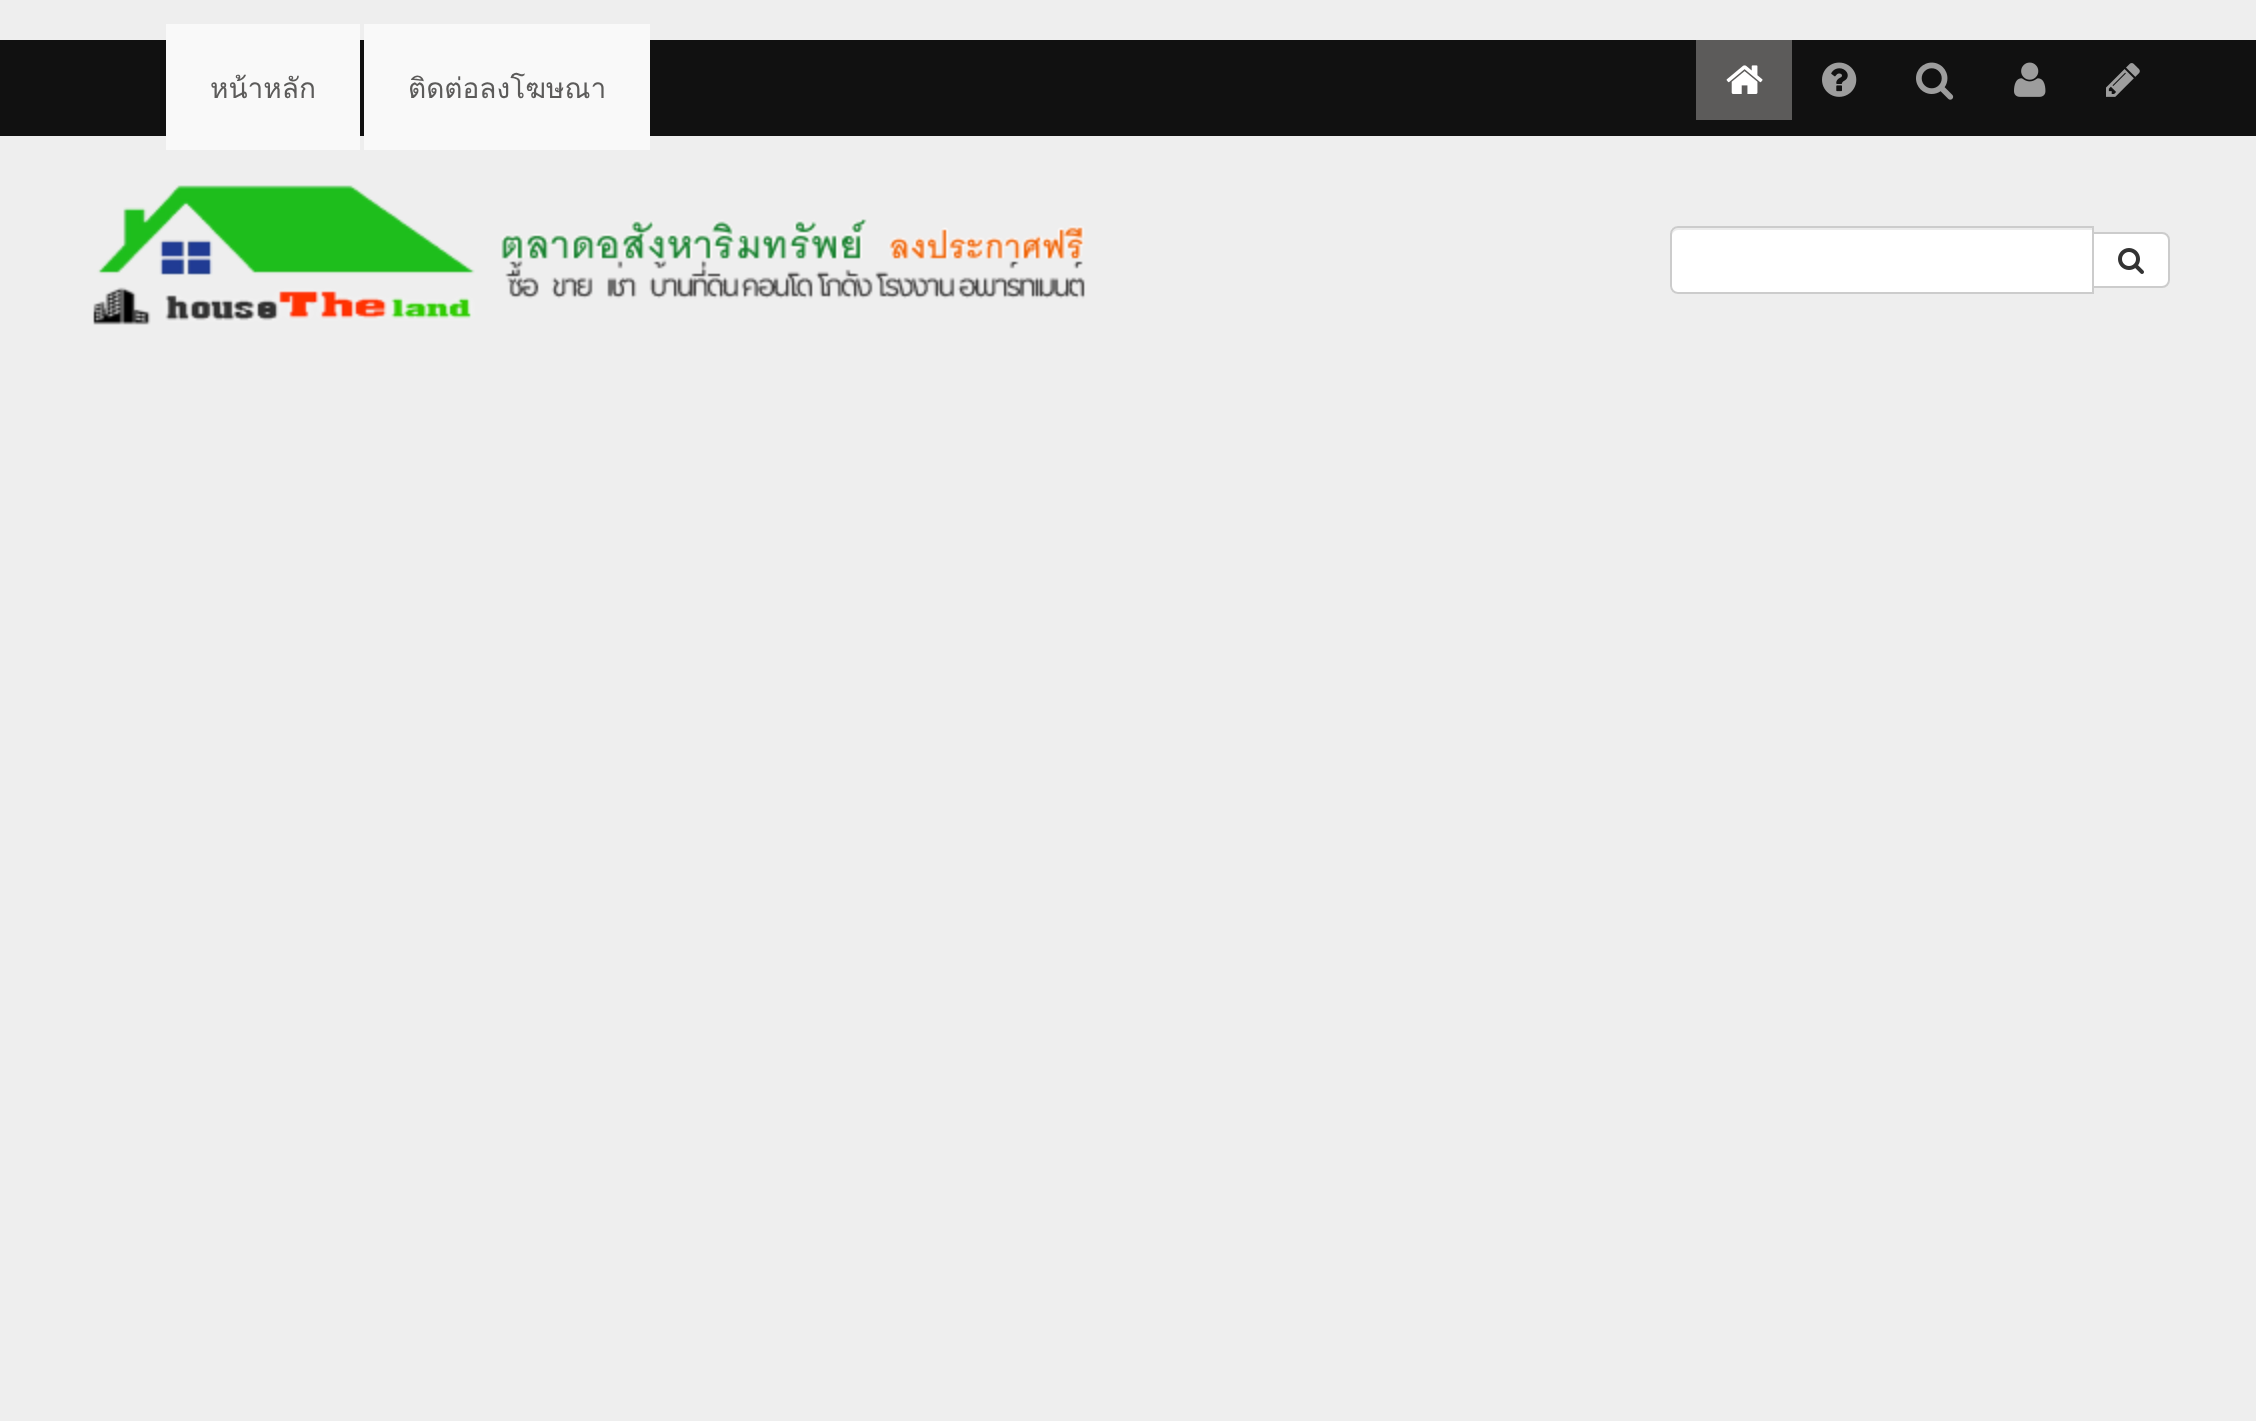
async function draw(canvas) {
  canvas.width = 2256
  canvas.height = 1421
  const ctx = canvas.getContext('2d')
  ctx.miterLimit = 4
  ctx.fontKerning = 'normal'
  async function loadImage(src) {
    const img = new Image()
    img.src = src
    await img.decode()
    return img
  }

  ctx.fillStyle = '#eee'
  ctx.fillRect(0, 0, 2256, 1421)
  ctx.fillStyle = '#111'
  ctx.fillRect(0, 40, 2256, 96)
  ctx.fillStyle = '#f9f9f9'
  ctx.fillRect(166, 24, 194, 126)
  ctx.font = '28px Loma'
  ctx.fillStyle = '#5c5b5a'
  ctx.fillText('หน้าหลัก', 210, 98)
  ctx.fillStyle = '#f9f9f9'
  ctx.fillRect(364, 24, 286, 126)
  ctx.fillStyle = '#5c5b5a'
  ctx.fillText('ติดต่อลงโฆษณา', 408, 98)
  ctx.fillRect(1696, 40, 96, 80)
  ctx.drawImage(await loadImage('image0.png'), 1726, 65, 37, 29)
  ctx.drawImage(await loadImage('image1.png'), 1822, 62, 35, 35)
  ctx.drawImage(await loadImage('image2.png'), 1916, 62, 38, 38)
  ctx.drawImage(await loadImage('image3.png'), 2014, 62, 32, 35)
  ctx.drawImage(await loadImage('image4.png'), 2106, 63, 34, 34)
  ctx.drawImage(await loadImage('image5.png'), 93, 185, 382, 140)
  ctx.drawImage(await loadImage('image6.png'), 500, 219, 585, 80)
  ctx.fillStyle = '#fff'
  ctx.beginPath()
  ctx.roundRect(2093, 233, 76, 54, [0, 7, 7, 0])
  ctx.fill()
  ctx.strokeStyle = '#ccc'
  ctx.lineWidth = 2
  ctx.stroke()
  ctx.beginPath()
  ctx.roundRect(1670, 226, 424, 68, [8, 0, 0, 8])
  ctx.fill()
  ctx.fillStyle = '#ececec'
  ctx.beginPath()
  ctx.moveTo(1678, 230)
  ctx.lineTo(2092, 230)
  ctx.lineTo(2092, 228)
  ctx.lineTo(1678, 228)
  ctx.bezierCurveTo(1675, 228, 1672, 231, 1672, 234)
  ctx.lineTo(1672, 236)
  ctx.bezierCurveTo(1672, 233, 1675, 230, 1678, 230)
  ctx.closePath()
  ctx.fill()
  ctx.beginPath()
  ctx.roundRect(1671, 227, 422, 66, [7, 0, 0, 7])
  ctx.stroke()
  ctx.drawImage(await loadImage('image7.png'), 2118, 248, 26, 26)
}

draw(document.querySelector('canvas'))
